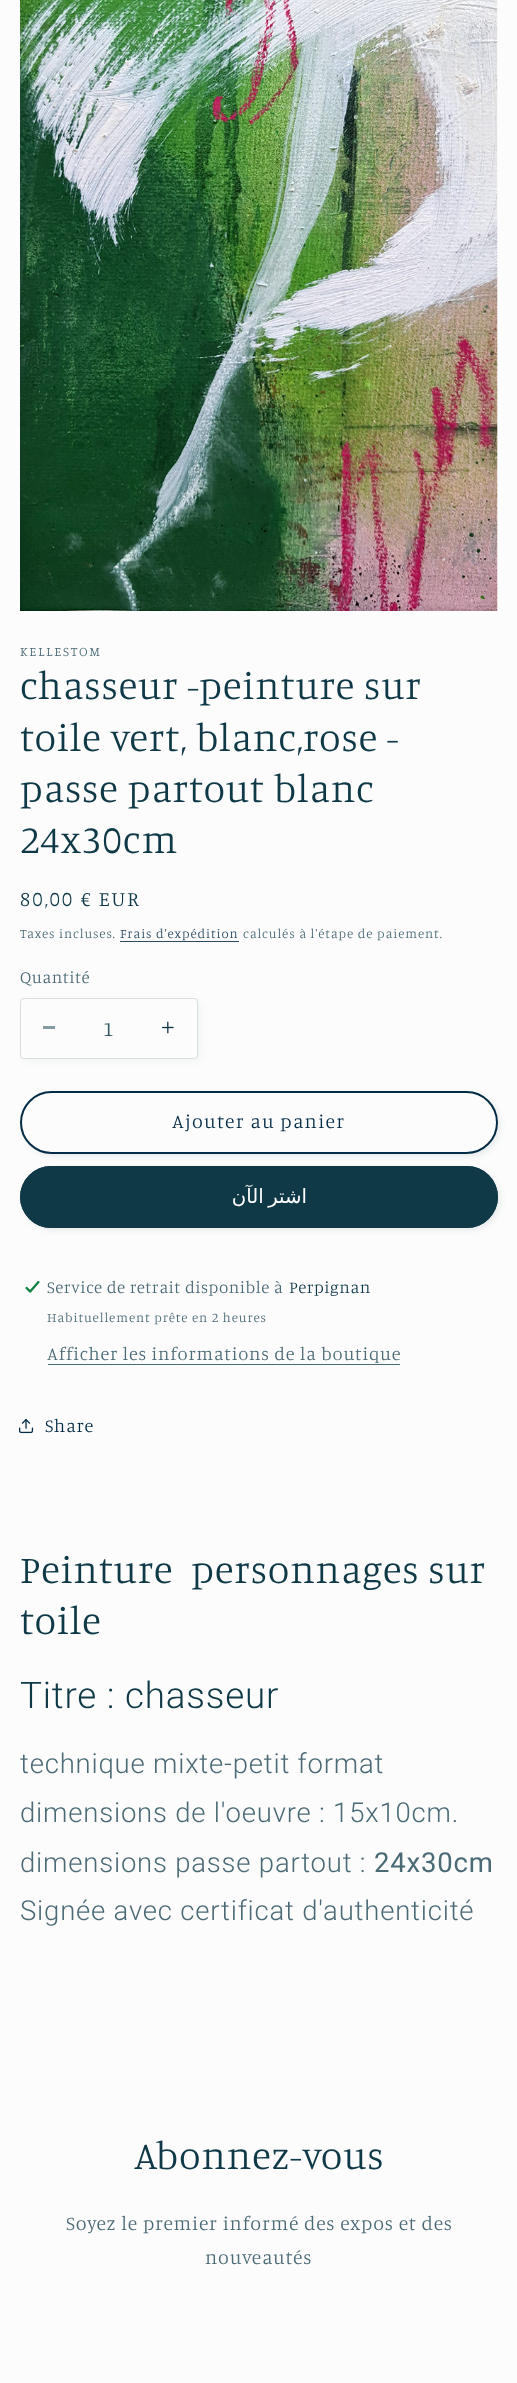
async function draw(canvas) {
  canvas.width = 517
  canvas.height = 2383
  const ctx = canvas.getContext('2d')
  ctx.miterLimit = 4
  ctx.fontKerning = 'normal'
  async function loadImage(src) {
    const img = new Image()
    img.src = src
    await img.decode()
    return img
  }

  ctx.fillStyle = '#fcfcfc'
  ctx.fillRect(0, 0, 517, 2383)
  ctx.drawImage(await loadImage('image0.png'), 20, 0, 478, 611)
  ctx.letterSpacing = '1.75px'
  ctx.font = '300 13.1px Manuale'
  ctx.fillStyle = '#4b6a75'
  ctx.fillText('KELLESTOM', 20, 656)
  ctx.letterSpacing = '0.8px'
  ctx.font = '300 39.4px Manuale'
  ctx.fillStyle = '#103948'
  ctx.fillText('chasseur -peinture sur', 20, 699)
  ctx.fillText('toile vert, blanc,rose -', 20, 751)
  ctx.fillText('passe partout blanc', 20, 802)
  ctx.fillText('24x30cm', 20, 853)
  ctx.letterSpacing = '1.75px'
  ctx.font = '300 21px Manuale'
  ctx.fillText('80,00 € EUR', 20, 906)
  ctx.letterSpacing = '0.9px'
  ctx.font = '300 13.1px Manuale'
  ctx.fillStyle = '#4b6a75'
  ctx.fillText('Taxes incluses.', 20, 938)
  ctx.fillStyle = '#2a4b61'
  ctx.fillText('Frais d\'expédition', 120, 938)
  ctx.fillRect(120, 941, 119, 1)
  ctx.fillStyle = '#4b6a75'
  ctx.fillText('calculés à l\'étape de paiement.', 243, 938)
  ctx.letterSpacing = '0.5px'
  ctx.font = '300 17px Manuale'
  ctx.fillText('Quantité', 20, 983)
  ctx.fillStyle = '#1039480d'
  ctx.filter = 'blur(3px)'
  ctx.beginPath()
  ctx.roundRect(23, 1000, 177, 61, 4)
  ctx.fill()
  ctx.filter = 'none'
  ctx.fillStyle = '#fcfcfc'
  ctx.beginPath()
  ctx.roundRect(20, 998, 178, 61, 4)
  ctx.fill()
  ctx.fillStyle = '#869ba2'
  ctx.fillRect(43, 1026, 12, 3)
  ctx.drawImage(await loadImage('image1.png'), 161, 1021, 13, 13)
  ctx.beginPath()
  ctx.roundRect(20.5, 998.5, 177, 60, 3.5)
  ctx.strokeStyle = '#d9dfe1'
  ctx.stroke()
  ctx.letterSpacing = '0px'
  ctx.font = '300 21px Manuale'
  ctx.fillStyle = '#335663'
  ctx.fillText('1', 103, 1036)
  ctx.fillStyle = '#1039481a'
  ctx.filter = 'blur(3px)'
  ctx.beginPath()
  ctx.roundRect(23, 1094, 477, 62, 31)
  ctx.fill()
  ctx.filter = 'none'
  ctx.fillStyle = '#fcfcfc'
  ctx.beginPath()
  ctx.roundRect(20, 1091, 478, 63, 31.5)
  ctx.fill()
  ctx.beginPath()
  ctx.roundRect(20.5, 1091.5, 477, 62, 31)
  ctx.strokeStyle = '#fcfcfc'
  ctx.stroke()
  ctx.beginPath()
  ctx.roundRect(21, 1092, 476, 61, 30.5)
  ctx.strokeStyle = '#052c46'
  ctx.lineWidth = 2
  ctx.stroke()
  ctx.letterSpacing = '1.3px'
  ctx.font = '300 19.7px Manuale'
  ctx.fillStyle = '#052c46'
  ctx.fillText('Ajouter au panier', 172, 1128)
  ctx.fillStyle = '#1039481a'
  ctx.filter = 'blur(3px)'
  ctx.beginPath()
  ctx.roundRect(23, 1169, 477, 61, 30.5)
  ctx.fill()
  ctx.filter = 'none'
  ctx.fillStyle = '#103948'
  ctx.beginPath()
  ctx.roundRect(20, 1166, 478, 62, 31)
  ctx.fill()
  ctx.beginPath()
  ctx.roundRect(20.5, 1166.5, 477, 61, 30.5)
  ctx.strokeStyle = '#103948'
  ctx.lineWidth = 1
  ctx.stroke()
  ctx.wordSpacing = '-3px'
  ctx.direction = 'rtl'
  ctx.font = '19.7px DejaVu Sans'
  ctx.fillStyle = '#fcfcfc'
  ctx.fillText('اشتر الآن', 307, 1203)
  ctx.drawImage(await loadImage('image2.png'), 25, 1281, 16, 13)
  ctx.letterSpacing = '0.5px'
  ctx.wordSpacing = '0px'
  ctx.direction = 'ltr'
  ctx.font = '300 17px Manuale'
  ctx.fillStyle = '#4b6a75'
  ctx.fillText('Service de retrait disponible à', 47, 1293)
  ctx.fillStyle = '#103948'
  ctx.fillText('Perpignan', 289, 1293)
  ctx.letterSpacing = '0.9px'
  ctx.font = '300 13.1px Manuale'
  ctx.fillStyle = '#4b6a75'
  ctx.fillText('Habituellement prête en 2 heures', 47, 1322)
  ctx.letterSpacing = '0.8px'
  ctx.font = '300 18.4px Manuale'
  ctx.fillText('Afficher les informations de la boutique', 47, 1360)
  ctx.fillRect(48, 1364, 352, 1)
  ctx.drawImage(await loadImage('image3.png'), 19, 1419, 15, 15)
  ctx.fillStyle = '#052c46'
  ctx.fillText('Share', 45, 1432)
  ctx.font = '300 39.4px Manuale'
  ctx.fillStyle = '#103948'
  ctx.fillText('Peinture  personnages sur', 20, 1583)
  ctx.fillText('toile', 20, 1634)
  ctx.font = '300 36.75px Roboto'
  ctx.fillText('Titre : chasseur', 20, 1708)
  ctx.font = '300 27.5px Roboto'
  ctx.fillStyle = '#4b6a75'
  ctx.fillText('technique mixte-petit format', 20, 1773)
  ctx.fillText('dimensions de l\'oeuvre : 15x10cm.', 20, 1822)
  ctx.fillText('dimensions passe partout :', 20, 1872)
  ctx.font = '27.5px Roboto'
  ctx.fillText('24x30cm', 374, 1872)
  ctx.font = '300 27.5px Roboto'
  ctx.fillText('Signée avec certificat d\'authenticité', 20, 1920)
  ctx.font = '300 39.4px Manuale'
  ctx.fillStyle = '#103948'
  ctx.fillText('Abonnez-vous', 134, 2169)
  ctx.font = '300 19.7px Manuale'
  ctx.fillStyle = '#4b6a75'
  ctx.fillText('Soyez le premier informé des expos et des', 66, 2230)
  ctx.fillText('nouveautés', 205, 2264)
}

draw(document.querySelector('canvas'))
